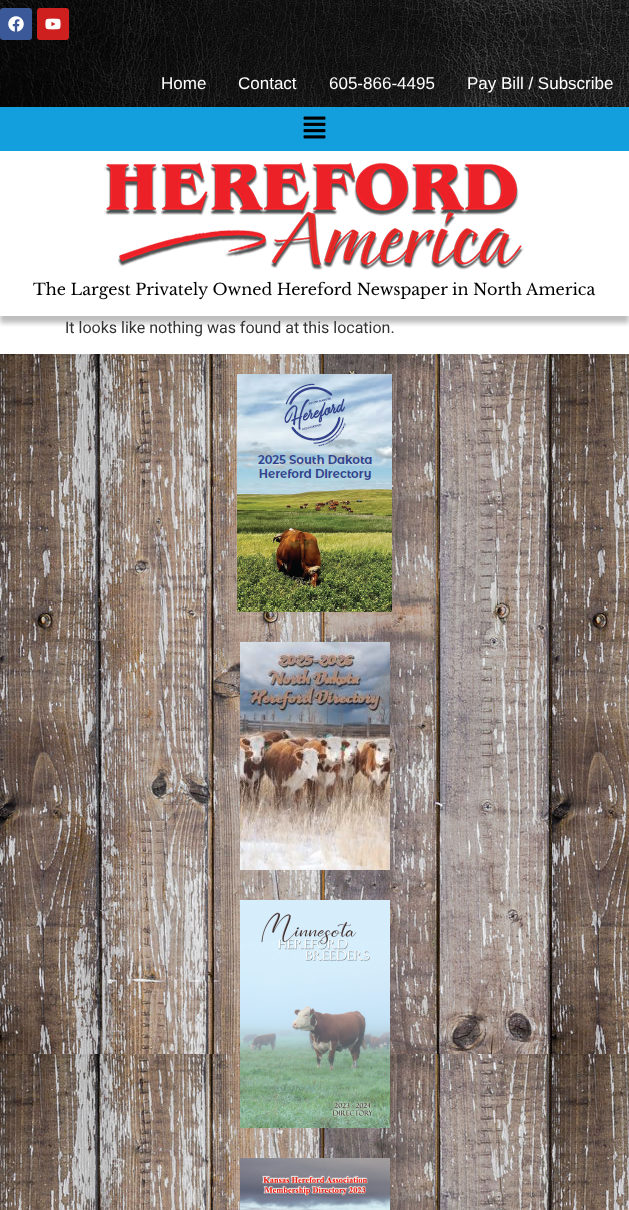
async function draw(canvas) {
  canvas.width = 629
  canvas.height = 1210
  const ctx = canvas.getContext('2d')
  ctx.miterLimit = 4
  ctx.fontKerning = 'normal'
  async function loadImage(src) {
    const img = new Image()
    img.src = src
    await img.decode()
    return img
  }

  ctx.fillStyle = '#fff'
  ctx.fillRect(0, 0, 629, 1210)
  ctx.drawImage(await loadImage('image0.png'), 0, 0, 629, 107)
  ctx.fillStyle = '#3b5998'
  ctx.beginPath()
  ctx.roundRect(0, 8, 32, 32, 3)
  ctx.fill()
  ctx.drawImage(await loadImage('image1.png'), 8, 16, 16, 16)
  ctx.fillStyle = '#cd201f'
  ctx.beginPath()
  ctx.roundRect(37, 8, 32, 32, 3)
  ctx.fill()
  ctx.drawImage(await loadImage('image2.png'), 45, 18, 16, 12)
  ctx.font = '17px Liberation Sans'
  ctx.fillStyle = '#fff'
  ctx.fillText('Home', 161, 89)
  ctx.fillText('Contact', 238, 89)
  ctx.fillText('605-866-4495', 329, 89)
  ctx.fillText('Pay Bill / Subscribe', 467, 89)
  ctx.fillStyle = '#139ede'
  ctx.fillRect(0, 107, 629, 44)
  ctx.drawImage(await loadImage('image3.png'), 303, 116, 23, 23)
  ctx.drawImage(await loadImage('image4.png'), 104, 162, 420, 108)
  ctx.save()
  ctx.beginPath()
  ctx.rect(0, 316, 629, 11)
  ctx.clip()
  ctx.fillStyle = '#00000042'
  ctx.filter = 'blur(2.5px)'
  ctx.beginPath()
  ctx.rect(0, 284, 629, 39)
  ctx.fill()
  ctx.filter = 'none'
  ctx.restore()
  ctx.font = '16px Libre Baskerville'
  ctx.fillStyle = '#000'
  ctx.fillText('The Largest Privately Owned Hereford Newspaper in North America', 33, 295)
  ctx.font = '16px Roboto'
  ctx.fillStyle = '#333'
  ctx.fillText('It looks like nothing was found at this location.', 65, 333)
  ctx.drawImage(await loadImage('image5.png'), 0, 354, 629, 856)
  ctx.drawImage(await loadImage('image6.png'), 237, 374, 155, 238)
  ctx.drawImage(await loadImage('image7.png'), 240, 642, 150, 228)
  ctx.drawImage(await loadImage('image8.png'), 240, 900, 150, 228)
  ctx.drawImage(await loadImage('image9.png'), 240, 1158, 150, 52)
}

draw(document.querySelector('canvas'))
